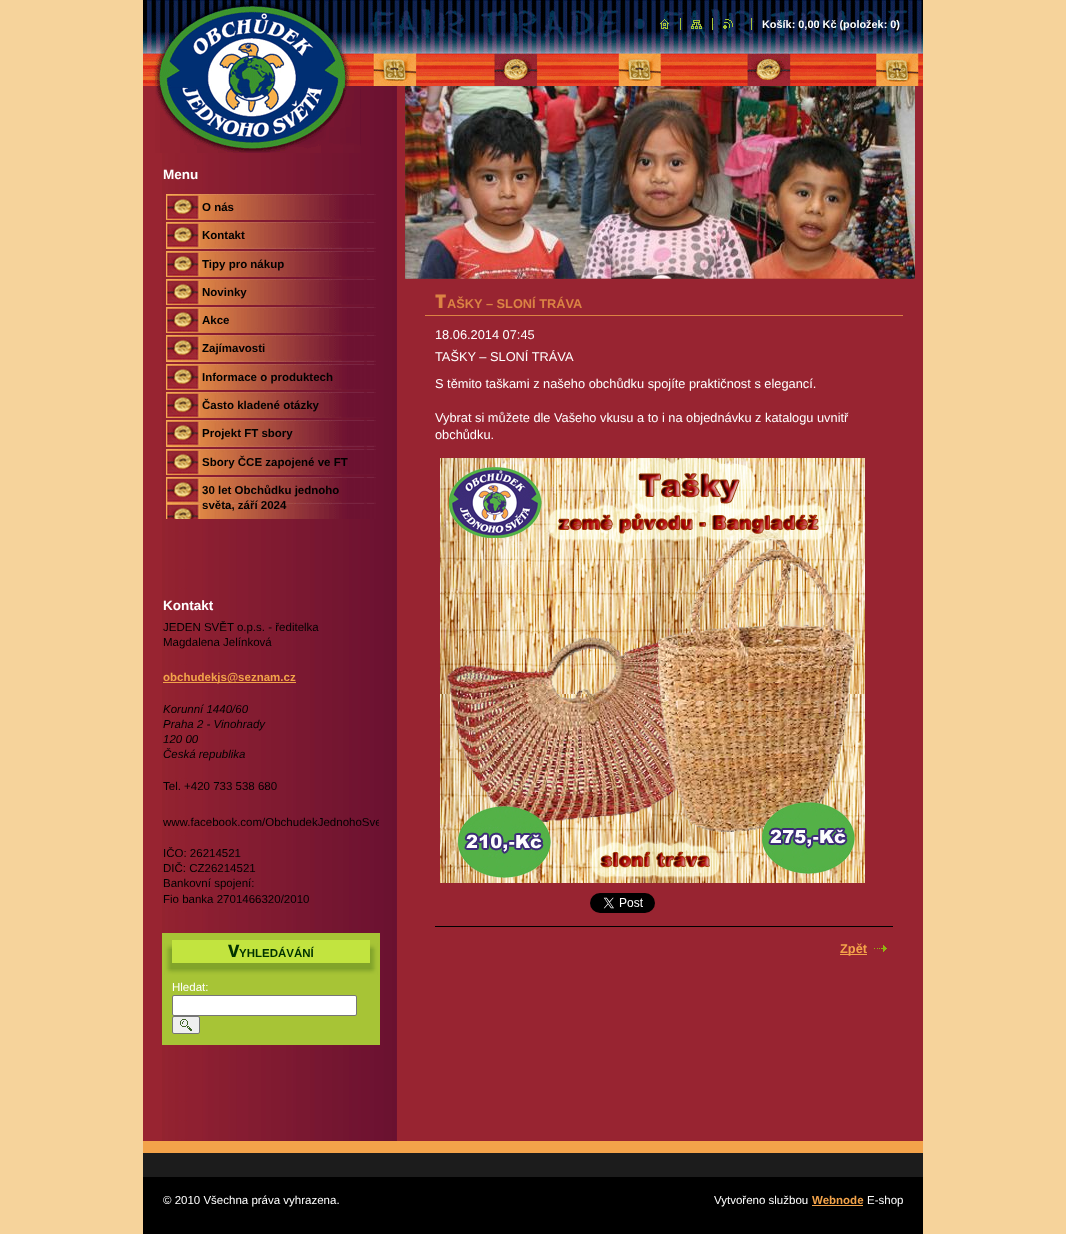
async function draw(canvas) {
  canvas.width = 1066
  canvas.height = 1234
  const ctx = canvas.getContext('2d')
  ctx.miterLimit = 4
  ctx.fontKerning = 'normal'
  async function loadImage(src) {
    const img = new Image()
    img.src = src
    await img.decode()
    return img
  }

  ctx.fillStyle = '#f6d39b'
  ctx.fillRect(0, 0, 1066, 1234)
  ctx.fillStyle = '#982431'
  ctx.fillRect(143, 86, 780, 1055)
  ctx.drawImage(await loadImage('image0.png'), 162, 86, 235, 1055)
  ctx.drawImage(await loadImage('image1.png'), 143, 0, 780, 86)
  ctx.drawImage(await loadImage('image2.png'), 660, 19, 9, 10)
  ctx.fillStyle = '#a7c436'
  ctx.fillRect(680, 18, 1, 12)
  ctx.drawImage(await loadImage('image3.png'), 691, 20, 11, 9)
  ctx.fillRect(712, 18, 1, 12)
  ctx.drawImage(await loadImage('image4.png'), 723, 19, 10, 10)
  ctx.font = 'bold 10.9px Liberation Sans'
  ctx.fillStyle = '#fff'
  ctx.fillText('Košík: 0,00 Kč (položek: 0)', 762, 28)
  ctx.fillStyle = '#a7c436'
  ctx.fillRect(751, 18, 1, 12)
  ctx.drawImage(await loadImage('image5.png'), 155, 86, 206, 67)
  ctx.font = 'bold 13.5px Liberation Sans'
  ctx.fillStyle = '#fff'
  ctx.fillText('Menu', 163, 179)
  ctx.drawImage(await loadImage('image6.png'), 166, 194, 210, 26)
  ctx.font = 'bold 11.5px Liberation Sans'
  ctx.fillStyle = '#000'
  ctx.fillText('O nás', 202, 211)
  ctx.drawImage(await loadImage('image7.png'), 166, 222, 210, 27)
  ctx.fillText('Kontakt', 202, 239)
  ctx.drawImage(await loadImage('image6.png'), 166, 251, 210, 26)
  ctx.fillText('Tipy pro nákup', 202, 268)
  ctx.drawImage(await loadImage('image6.png'), 166, 279, 210, 26)
  ctx.fillText('Novinky', 202, 296)
  ctx.drawImage(await loadImage('image6.png'), 166, 307, 210, 26)
  ctx.fillText('Akce', 202, 324)
  ctx.drawImage(await loadImage('image7.png'), 166, 335, 210, 27)
  ctx.fillText('Zajímavosti', 202, 352)
  ctx.drawImage(await loadImage('image6.png'), 166, 364, 210, 26)
  ctx.fillText('Informace o produktech', 202, 381)
  ctx.drawImage(await loadImage('image6.png'), 166, 392, 210, 26)
  ctx.fillText('Často kladené otázky', 202, 409)
  ctx.drawImage(await loadImage('image7.png'), 166, 420, 210, 27)
  ctx.fillText('Projekt FT sbory', 202, 437)
  ctx.drawImage(await loadImage('image6.png'), 166, 449, 210, 26)
  ctx.fillText('Sbory ČCE zapojené ve FT', 202, 466)
  ctx.drawImage(await loadImage('image8.png'), 166, 477, 210, 42)
  ctx.fillText('30 let Obchůdku jednoho', 202, 494)
  ctx.fillText('světa, září 2024', 202, 509)
  ctx.font = 'bold 13.5px Liberation Sans'
  ctx.fillStyle = '#fff'
  ctx.fillText('Kontakt', 163, 610)
  ctx.font = '11.5px Liberation Sans'
  ctx.fillStyle = '#000'
  ctx.fillText('JEDEN SVĚT o.p.s. - ředitelka', 163, 631)
  ctx.fillText('Magdalena Jelínková', 163, 646)
  ctx.fillStyle = '#f3a34a'
  ctx.fillRect(163, 682, 107, 1)
  ctx.font = 'bold 11.5px Liberation Sans'
  ctx.fillText('obchudekjs@seznam.cz', 163, 681)
  ctx.fillRect(270, 682, 26, 1)
  ctx.font = 'italic 11.5px Liberation Sans'
  ctx.fillStyle = '#000'
  ctx.fillText('Korunní 1440/60', 163, 713)
  ctx.fillText('Praha 2 - Vinohrady', 163, 728)
  ctx.fillText('120 00', 163, 743)
  ctx.fillText('Česká republika', 163, 758)
  ctx.font = '11.5px Liberation Sans'
  ctx.fillText('Tel. +420 733 538 680', 163, 790)
  ctx.save()
  ctx.beginPath()
  ctx.rect(163, 615, 216, 298)
  ctx.clip()
  ctx.fillText('www.facebook.com/ObchudekJednohoSve', 163, 826)
  ctx.restore()
  ctx.fillText('IČO: 26214521', 163, 857)
  ctx.fillText('DIČ: CZ26214521', 163, 872)
  ctx.fillText('Bankovní spojení:', 163, 887)
  ctx.fillText('Fio banka 2701466320/2010', 163, 903)
  ctx.fillStyle = '#a7c436'
  ctx.fillRect(162, 933, 218, 112)
  ctx.fillStyle = '#82a42a'
  ctx.fillRect(172, 963, 198, 6)
  ctx.drawImage(await loadImage('image9.png'), 162, 943, 218, 32)
  ctx.drawImage(await loadImage('image10.png'), 165, 943, 212, 6)
  ctx.fillStyle = '#c2e43f'
  ctx.fillRect(172, 940, 198, 23)
  ctx.font = '800 17px Noto Sans'
  ctx.fillStyle = '#030'
  ctx.fillText('V', 228, 957)
  ctx.font = 'bold 11.5px Liberation Sans'
  ctx.fillText('YHLEDÁVÁNÍ', 239, 957)
  ctx.drawImage(await loadImage('image11.png'), 165, 969, 212, 6)
  ctx.font = '11.5px Liberation Sans'
  ctx.fillStyle = '#fff'
  ctx.fillText('Hledat:', 172, 991)
  ctx.beginPath()
  ctx.roundRect(172.5, 995.5, 184, 20, 1.5)
  ctx.fill()
  ctx.strokeStyle = '#767676'
  ctx.stroke()
  ctx.fillStyle = '#efefef'
  ctx.beginPath()
  ctx.roundRect(172.5, 1016.5, 27, 17, 1.5)
  ctx.fill()
  ctx.stroke()
  ctx.drawImage(await loadImage('image12.png'), 180, 1019, 12, 12)
  ctx.drawImage(await loadImage('image13.png'), 405, 86, 510, 193)
  ctx.fillStyle = '#db8344'
  ctx.fillRect(425, 315, 478, 1)
  ctx.font = '900 19px Noto Sans'
  ctx.fillText('T', 435, 308)
  ctx.font = 'bold 12.8px Liberation Sans'
  ctx.fillText('AŠKY – SLONÍ TRÁVA', 447, 308)
  ctx.font = '12.8px Liberation Sans'
  ctx.fillStyle = '#fff'
  ctx.fillText('18.06.2014 07:45', 435, 339)
  ctx.fillText('TAŠKY – SLONÍ TRÁVA', 435, 361)
  ctx.fillText('S těmito taškami z našeho obchůdku spojíte praktičnost s elegancí.', 435, 388)
  ctx.fillText('Vybrat si můžete dle Vašeho vkusu a to i na objednávku z katalogu uvnitř', 435, 422)
  ctx.fillText('obchůdku.', 435, 439)
  ctx.drawImage(await loadImage('image14.png'), 440, 458, 425, 425)
  ctx.drawImage(await loadImage('image15.png'), 590, 893, 65, 20)
  ctx.fillStyle = '#000'
  ctx.fillRect(435, 926, 458, 1)
  ctx.fillStyle = '#f3a34a'
  ctx.fillRect(840, 954, 27, 1)
  ctx.font = 'bold 12.8px Liberation Sans'
  ctx.fillText('Zpět', 840, 953)
  ctx.drawImage(await loadImage('image16.png'), 874, 945, 13, 7)
  ctx.fillRect(143, 1141, 780, 12)
  ctx.drawImage(await loadImage('image17.png'), 143, 1153, 780, 81)
  ctx.font = '11.5px Liberation Sans'
  ctx.fillStyle = '#fff'
  ctx.fillText('© 2010 Všechna práva vyhrazena.', 163, 1204)
  ctx.fillText('Vytvořeno službou', 714, 1204)
  ctx.font = 'bold 11.5px Liberation Sans'
  ctx.fillStyle = '#f3a34a'
  ctx.fillText('Webnode', 812, 1204)
  ctx.fillRect(812, 1205, 51, 1)
  ctx.font = '11.5px Liberation Sans'
  ctx.fillStyle = '#fff'
  ctx.fillText('E-shop', 867, 1204)
}

draw(document.querySelector('canvas'))
